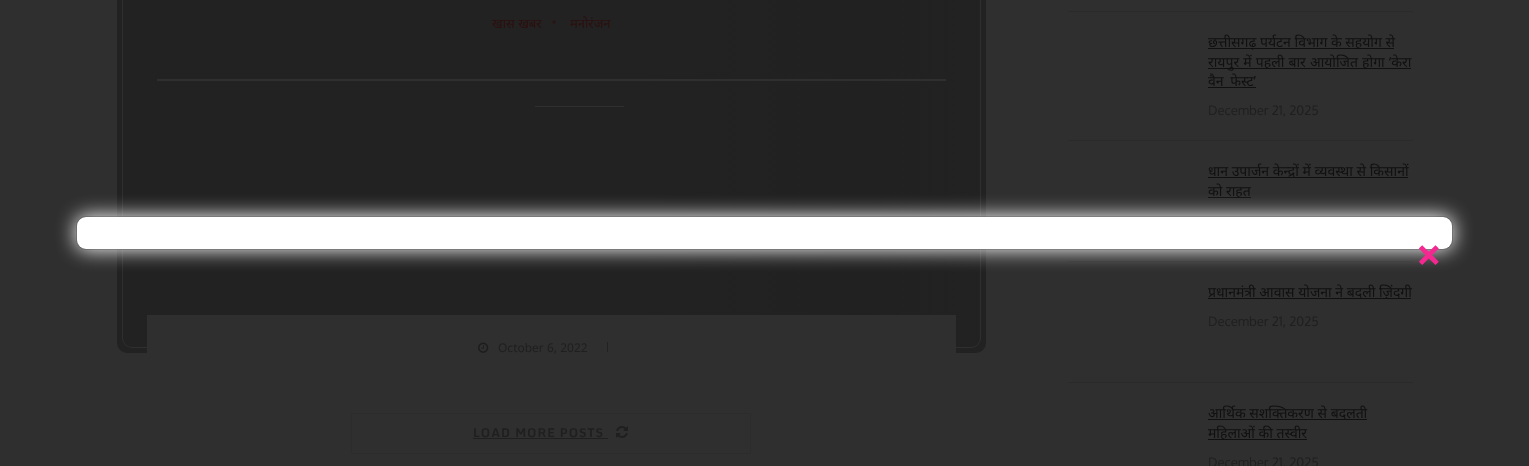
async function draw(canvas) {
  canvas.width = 1529
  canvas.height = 466
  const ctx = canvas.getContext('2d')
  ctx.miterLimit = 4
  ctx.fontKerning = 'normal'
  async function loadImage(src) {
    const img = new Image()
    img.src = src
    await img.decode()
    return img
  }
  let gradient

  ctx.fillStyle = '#2f2f2f'
  ctx.fillRect(0, 0, 1529, 466)
  gradient = ctx.createLinearGradient(1002, 63, 101, 63)
  gradient.addColorStop(0, '#2d2d2d')
  gradient.addColorStop(0.15, '#2c2c2c')
  gradient.addColorStop(0.4, '#2d2d2d')
  gradient.addColorStop(1, '#2d2d2d')
  ctx.fillStyle = gradient
  ctx.beginPath()
  ctx.roundRect(117, -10, 869, 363, 10)
  ctx.fill()
  ctx.fillStyle = '#0909094d'
  ctx.beginPath()
  ctx.roundRect(117, -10, 869, 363, 10)
  ctx.fill()
  ctx.beginPath()
  ctx.roundRect(122.5, -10.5, 858, 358, 9.5)
  ctx.strokeStyle = '#2f2f2f'
  ctx.stroke()
  ctx.font = '13px Noto Sans'
  ctx.fillStyle = '#2c0f0e'
  ctx.fillText('खास खबर', 492, 28)
  ctx.beginPath()
  ctx.moveTo(554, 20.5)
  ctx.lineTo(555.5, 22)
  ctx.lineTo(554, 23.5)
  ctx.lineTo(553, 22)
  ctx.closePath()
  ctx.strokeStyle = '#2c0f0e'
  ctx.stroke()
  ctx.fillText('मनोरंजन', 570, 28)
  ctx.fillStyle = '#2f2f2f'
  ctx.fillRect(157, 79, 789, 2)
  ctx.fillRect(535, 106, 89, 1)
  ctx.fillRect(147, 315, 809, 38)
  ctx.drawImage(await loadImage('image0.png'), 478, 342, 11, 11)
  ctx.font = '12px Noto Sans'
  ctx.fillStyle = '#1f1f1f'
  ctx.fillText('October 6, 2022', 498, 352)
  ctx.fillStyle = '#222'
  ctx.fillRect(607, 342, 1, 10)
  ctx.strokeStyle = '#2c2c2c'
  ctx.strokeRect(351.5, 413.5, 399, 40)
  ctx.letterSpacing = '1px'
  ctx.font = 'bold 12px Monda'
  ctx.fillStyle = '#1f1f1f'
  ctx.fillText('LOAD MORE POSTS', 473, 437)
  ctx.fillRect(473, 438, 135, 1)
  ctx.drawImage(await loadImage('image1.png'), 616, 426, 12, 12)
  ctx.fillStyle = '#2a2a2a'
  ctx.fillRect(1068, 11, 345, 1)
  ctx.fillRect(1068, 140, 345, 1)
  ctx.fillStyle = '#101010'
  ctx.fillRect(1208, 48, 186, 1)
  ctx.letterSpacing = '0px'
  ctx.font = '14px Noto Sans'
  ctx.fillText('छत्तीसगढ़ पर्यटन विभाग के सहयोग से', 1208, 47)
  ctx.fillRect(1208, 68, 203, 1)
  ctx.wordSpacing = '0.5px'
  ctx.fillText('रायपुर में पहली बार आयोजित होगा ‘केरा', 1208, 67)
  ctx.save()
  ctx.beginPath()
  ctx.rect(1208, 32, 205, 88)
  ctx.clip()
  ctx.wordSpacing = '3px'
  ctx.fillText('वैन फेस्ट’', 1208, 86)
  ctx.restore()
  ctx.fillRect(1208, 87, 48, 1)
  ctx.wordSpacing = '0px'
  ctx.font = '13px Oxygen'
  ctx.fillStyle = '#1f1f1f'
  ctx.fillText('December 21, 2025', 1208, 115)
  ctx.fillStyle = '#2a2a2a'
  ctx.fillRect(1068, 261, 345, 1)
  ctx.font = '14px Noto Sans'
  ctx.fillStyle = '#101010'
  ctx.fillText('धान उपार्जन केन्द्रों में व्यवस्था से किसानों', 1208, 176)
  ctx.fillRect(1208, 177, 200, 1)
  ctx.fillRect(1208, 197, 43, 1)
  ctx.save()
  ctx.beginPath()
  ctx.rect(1208, 161, 205, 69)
  ctx.clip()
  ctx.fillText('को राहत', 1208, 196)
  ctx.restore()
  ctx.fillStyle = '#2a2a2a'
  ctx.fillRect(1068, 382, 345, 1)
  ctx.fillStyle = '#101010'
  ctx.fillRect(1208, 298, 203, 1)
  ctx.fillText('प्रधानमंत्री आवास योजना ने बदली ज़िंदगी', 1208, 297)
  ctx.font = '13px Oxygen'
  ctx.fillStyle = '#1f1f1f'
  ctx.fillText('December 21, 2025', 1208, 326)
  ctx.font = '14px Noto Sans'
  ctx.fillStyle = '#101010'
  ctx.fillText('आर्थिक सशक्तिकरण से बदलती', 1208, 418)
  ctx.fillRect(1208, 419, 159, 1)
  ctx.fillRect(1208, 439, 99, 1)
  ctx.fillText('महिलाओं की तस्वीर', 1208, 438)
  ctx.font = '13px Oxygen'
  ctx.fillStyle = '#1f1f1f'
  ctx.fillText('December 21, 2025', 1208, 467)
  ctx.fillStyle = '#fff'
  ctx.filter = 'blur(10px)'
  ctx.beginPath()
  ctx.roundRect(76, 216, 1377, 34, 10)
  ctx.fill()
  ctx.filter = 'none'
  ctx.beginPath()
  ctx.roundRect(77, 217, 1375, 32, 9)
  ctx.fill()
  ctx.beginPath()
  ctx.roundRect(76.5, 216.5, 1376, 33, 9.5)
  ctx.strokeStyle = '#0000002e'
  ctx.stroke()
  ctx.font = 'bold 45px Noto Sans'
  ctx.fillStyle = '#f52891'
  ctx.fillText('×', 1416, 271)
}

draw(document.querySelector('canvas'))
